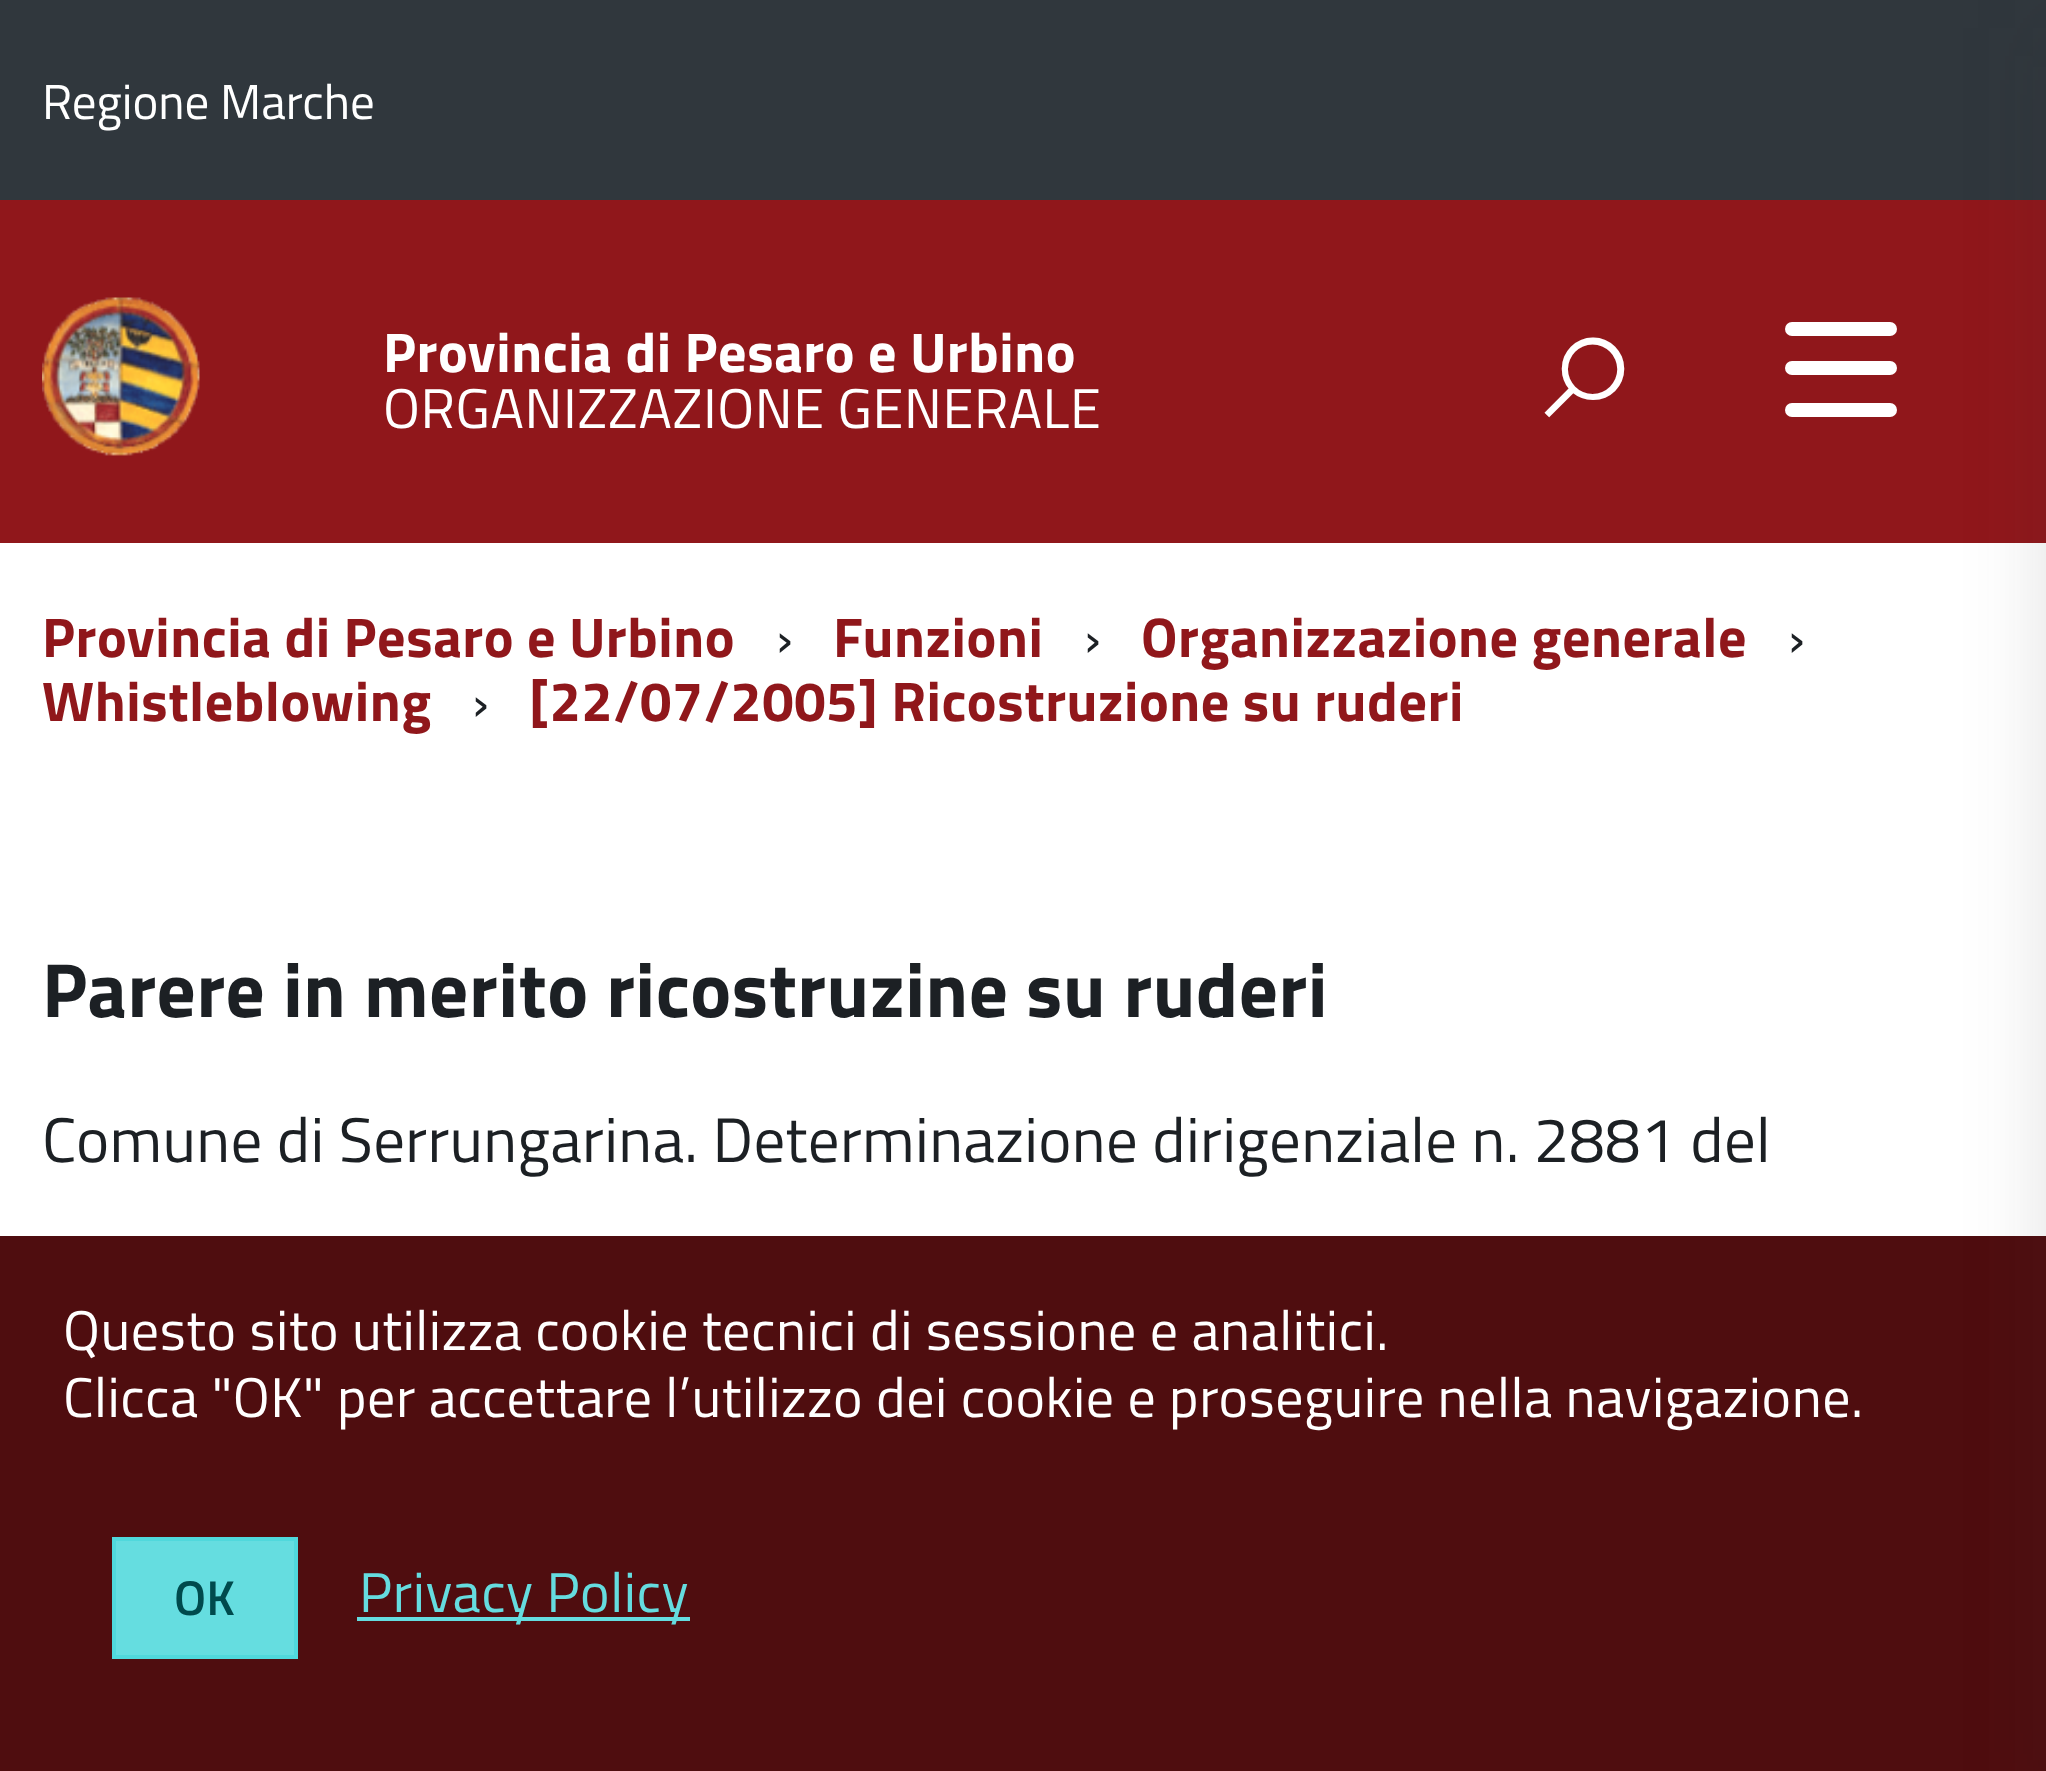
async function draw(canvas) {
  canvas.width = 2046
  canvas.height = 1771
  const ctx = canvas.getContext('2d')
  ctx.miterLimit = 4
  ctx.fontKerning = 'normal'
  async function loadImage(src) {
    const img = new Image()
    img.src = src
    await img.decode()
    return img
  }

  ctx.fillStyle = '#fff'
  ctx.fillRect(0, 0, 2046, 1771)
  ctx.fillStyle = '#30373d'
  ctx.fillRect(0, 0, 2046, 200)
  ctx.font = '49px Titillium Web'
  ctx.fillStyle = '#fff'
  ctx.fillText('Regione Marche', 42, 119)
  ctx.fillStyle = '#90171b'
  ctx.fillRect(0, 200, 2046, 343)
  ctx.drawImage(await loadImage('image0.png'), 42, 297, 158, 159)
  ctx.letterSpacing = '0.55px'
  ctx.font = 'bold 56px Titillium Web'
  ctx.fillStyle = '#fff'
  ctx.fillText('Provincia di Pesaro e Urbino', 383, 372)
  ctx.font = '56px Titillium Web'
  ctx.fillText('ORGANIZZAZIONE GENERALE', 383, 428)
  ctx.letterSpacing = '0px'
  ctx.font = 'bold 77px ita'
  ctx.fillText('🔍', 1545, 412)
  ctx.beginPath()
  ctx.roundRect(1785, 361, 112, 14, 7)
  ctx.fill()
  ctx.beginPath()
  ctx.roundRect(1785, 322, 112, 14, 7)
  ctx.fill()
  ctx.beginPath()
  ctx.roundRect(1785, 403, 112, 14, 7)
  ctx.fill()
  ctx.fillStyle = '#4f0d0f'
  ctx.fillRect(0, 1236, 2046, 535)
  ctx.fillStyle = '#32323226'
  ctx.filter = 'blur(42px)'
  ctx.beginPath()
  ctx.rect(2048, 28, 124, 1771)
  ctx.fill()
  ctx.filter = 'none'
  ctx.letterSpacing = '0.55px'
  ctx.font = 'bold 56px Titillium Web'
  ctx.fillStyle = '#90171b'
  ctx.fillText('Provincia di Pesaro e Urbino', 42, 657)
  ctx.letterSpacing = '0px'
  ctx.font = '56px Titillium Web'
  ctx.fillStyle = '#1c2024'
  ctx.fillText('›', 776, 657)
  ctx.letterSpacing = '0.55px'
  ctx.font = 'bold 56px Titillium Web'
  ctx.fillStyle = '#90171b'
  ctx.fillText('Funzioni', 833, 657)
  ctx.letterSpacing = '0px'
  ctx.font = '56px Titillium Web'
  ctx.fillStyle = '#1c2024'
  ctx.fillText('›', 1084, 657)
  ctx.letterSpacing = '0.55px'
  ctx.font = 'bold 56px Titillium Web'
  ctx.fillStyle = '#90171b'
  ctx.fillText('Organizzazione generale', 1141, 657)
  ctx.letterSpacing = '0px'
  ctx.font = '56px Titillium Web'
  ctx.fillStyle = '#1c2024'
  ctx.fillText('›', 1788, 657)
  ctx.letterSpacing = '0.55px'
  ctx.font = 'bold 56px Titillium Web'
  ctx.fillStyle = '#90171b'
  ctx.fillText('Whistleblowing', 42, 721)
  ctx.letterSpacing = '0px'
  ctx.font = '56px Titillium Web'
  ctx.fillStyle = '#1c2024'
  ctx.fillText('›', 472, 721)
  ctx.letterSpacing = '0.55px'
  ctx.font = 'bold 56px Titillium Web'
  ctx.fillStyle = '#90171b'
  ctx.fillText('[22/07/2005] Ricostruzione su ruderi', 529, 721)
  ctx.font = 'bold 77px Titillium Web'
  ctx.fillStyle = '#1c2024'
  ctx.fillText('Parere in merito ricostruzine su ruderi', 42, 1017)
  ctx.letterSpacing = '0.32px'
  ctx.font = '63px Titillium Web'
  ctx.fillText('Comune di Serrungarina. Determinazione dirigenziale n. 2881 del', 42, 1162)
  ctx.letterSpacing = '0.55px'
  ctx.font = '56px Titillium Web'
  ctx.fillStyle = '#fff'
  ctx.fillText('Questo sito utilizza cookie tecnici di sessione e analitici.', 63, 1350)
  ctx.fillText('Clicca "OK" per accettare l’utilizzo dei cookie e proseguire nella navigazione.', 63, 1417)
  ctx.fillStyle = '#65dde0'
  ctx.beginPath()
  ctx.rect(114, 1539, 182, 118)
  ctx.fill()
  ctx.strokeStyle = '#50d8dc'
  ctx.lineWidth = 4
  ctx.stroke()
  ctx.letterSpacing = '0px'
  ctx.font = '600 49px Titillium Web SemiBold'
  ctx.fillStyle = '#004a4d'
  ctx.fillText('OK', 174, 1615)
  ctx.fillStyle = '#65dcdf'
  ctx.fillRect(357, 1617, 333, 4)
  ctx.letterSpacing = '0.55px'
  ctx.font = '56px Titillium Web'
  ctx.fillText('Privacy Policy', 359, 1612)
}

draw(document.querySelector('canvas'))
